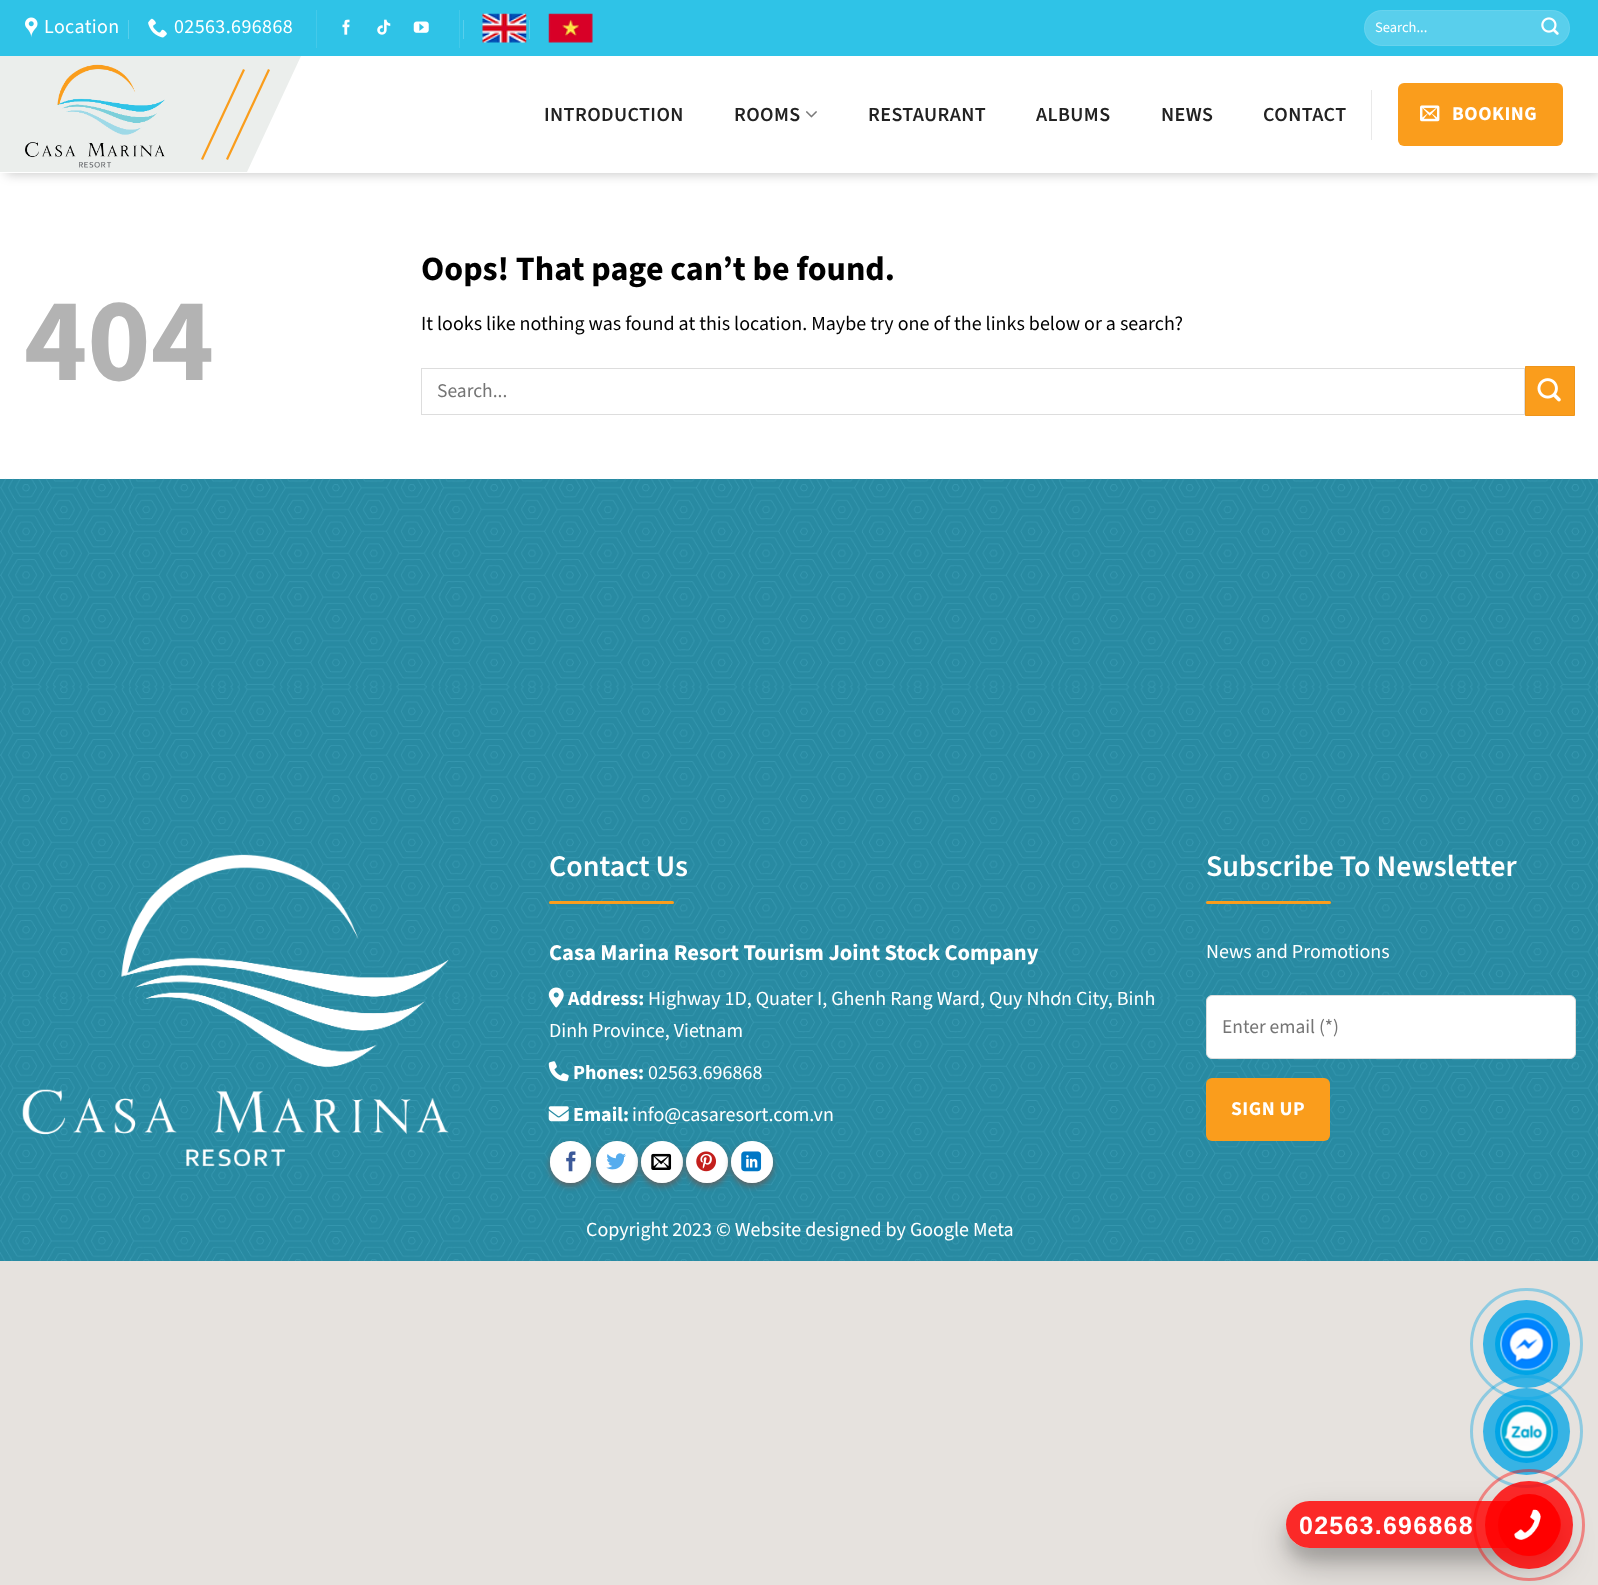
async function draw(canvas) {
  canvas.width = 1598
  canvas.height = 1585
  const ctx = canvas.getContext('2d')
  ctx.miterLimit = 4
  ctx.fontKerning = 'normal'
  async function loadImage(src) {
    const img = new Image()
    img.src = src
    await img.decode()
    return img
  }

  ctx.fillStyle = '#e6e2de'
  ctx.fillRect(0, 0, 1598, 1585)
  ctx.fillStyle = '#fff'
  ctx.fillRect(0, 173, 1598, 306)
  ctx.fillStyle = '#00000038'
  ctx.filter = 'blur(6px)'
  ctx.beginPath()
  ctx.rect(6, 6, 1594, 168)
  ctx.fill()
  ctx.filter = 'none'
  ctx.fillStyle = '#2fc3e7'
  ctx.fillRect(0, 0, 1598, 56)
  ctx.drawImage(await loadImage('image0.png'), 25, 17, 13, 21)
  ctx.letterSpacing = '0.4px'
  ctx.font = '20px "Source Sans 3"'
  ctx.fillStyle = '#fff'
  ctx.fillText('Location', 44, 33)
  ctx.fillStyle = '#59cfec'
  ctx.fillRect(128, 20, 1, 19)
  ctx.drawImage(await loadImage('image1.png'), 148, 18, 19, 20)
  ctx.fillStyle = '#fff'
  ctx.fillText('02563.696868', 174, 33)
  ctx.fillStyle = '#44c9e9'
  ctx.fillRect(316, 10, 1, 38)
  ctx.drawImage(await loadImage('image2.png'), 342, 19, 8, 16)
  ctx.drawImage(await loadImage('image3.png'), 377, 19, 14, 16)
  ctx.drawImage(await loadImage('image4.png'), 413, 21, 16, 12)
  ctx.fillRect(459, 10, 1, 38)
  ctx.fillStyle = '#59cfec'
  ctx.fillRect(463, 20, 1, 19)
  ctx.drawImage(await loadImage('image5.png'), 482, 13, 45, 30)
  ctx.fillRect(529, 20, 1, 19)
  ctx.drawImage(await loadImage('image6.png'), 548, 13, 45, 30)
  ctx.beginPath()
  ctx.roundRect(1364, 10, 206, 36, 18)
  ctx.fill()
  ctx.beginPath()
  ctx.roundRect(1364.5, 10.5, 205, 35, 17.5)
  ctx.strokeStyle = '#ffffff17'
  ctx.stroke()
  ctx.letterSpacing = '0px'
  ctx.font = '14.5px "Source Sans 3"'
  ctx.fillStyle = '#fff'
  ctx.fillText('Search...', 1375, 32)
  ctx.drawImage(await loadImage('image7.png'), 1541, 17, 18, 18)
  ctx.fillRect(0, 56, 1598, 117)
  ctx.fillStyle = '#ebeeec'
  ctx.beginPath()
  ctx.moveTo(-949, 56)
  ctx.lineTo(301, 56)
  ctx.lineTo(247, 172)
  ctx.lineTo(-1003, 172)
  ctx.closePath()
  ctx.fill()
  ctx.drawImage(await loadImage('image8.png'), 25, 64, 140, 104)
  ctx.fillStyle = '#fa9d1c'
  ctx.beginPath()
  ctx.moveTo(268, 69)
  ctx.lineTo(270, 70)
  ctx.lineTo(228, 160)
  ctx.lineTo(226, 159)
  ctx.closePath()
  ctx.fill()
  ctx.beginPath()
  ctx.moveTo(243, 69)
  ctx.lineTo(245, 70)
  ctx.lineTo(203, 160)
  ctx.lineTo(201, 159)
  ctx.closePath()
  ctx.fill()
  ctx.fillStyle = '#e9e9e9'
  ctx.fillRect(1371, 90, 1, 50)
  ctx.letterSpacing = '0.4px'
  ctx.font = '600 20px "Source Sans 3"'
  ctx.fillStyle = '#222'
  ctx.fillText('INTRODUCTION', 544, 121)
  ctx.fillText('ROOMS', 734, 121)
  ctx.drawImage(await loadImage('image9.png'), 806, 111, 11, 7)
  ctx.fillText('RESTAURANT', 868, 121)
  ctx.fillText('ALBUMS', 1036, 121)
  ctx.fillText('NEWS', 1161, 121)
  ctx.fillText('CONTACT', 1263, 121)
  ctx.fillStyle = '#fa9d1c'
  ctx.beginPath()
  ctx.roundRect(1398, 83, 165, 63, 6)
  ctx.fill()
  ctx.drawImage(await loadImage('image10.png'), 1420, 105, 20, 17)
  ctx.letterSpacing = '0.5px'
  ctx.font = 'bold 19.5px "Source Sans 3"'
  ctx.fillStyle = '#fff'
  ctx.fillText('BOOKING', 1452, 120)
  ctx.letterSpacing = '0px'
  ctx.font = 'bold 120px "Source Sans 3"'
  ctx.fillStyle = '#b3b3b3'
  ctx.fillText('404', 24, 380)
  ctx.font = 'bold 34px "Source Sans 3"'
  ctx.fillStyle = '#000'
  ctx.fillText('Oops! That page can’t be found.', 421, 280)
  ctx.font = '20px "Source Sans 3"'
  ctx.fillText('It looks like nothing was found at this location. Maybe try one of the links below or a search?', 421, 330)
  ctx.strokeStyle = '#ddd'
  ctx.strokeRect(421.5, 368.5, 1103, 46)
  ctx.font = '19.5px "Source Sans 3"'
  ctx.fillStyle = '#757575'
  ctx.fillText('Search...', 437, 397)
  ctx.fillStyle = '#fa9d1c'
  ctx.beginPath()
  ctx.rect(1525.5, 366.5, 49, 49)
  ctx.fill()
  ctx.strokeStyle = '#ee951b'
  ctx.stroke()
  ctx.drawImage(await loadImage('image11.png'), 1537, 378, 24, 24)
  ctx.fillStyle = '#288aa2'
  ctx.fillRect(0, 479, 1598, 782)
  ctx.drawImage(await loadImage('image12.png'), 0, 478, 1598, 783)
  ctx.drawImage(await loadImage('image13.png'), 22, 854, 427, 313)
  ctx.font = '600 30px "Source Sans 3"'
  ctx.fillStyle = '#fff'
  ctx.fillText('Contact Us', 549, 876)
  ctx.fillStyle = '#fa9d1c'
  ctx.beginPath()
  ctx.roundRect(549, 901, 125, 3, 1.5)
  ctx.fill()
  ctx.font = 'bold 22.5px "Source Sans 3"'
  ctx.fillStyle = '#fff'
  ctx.fillText('Casa Marina Resort Tourism Joint Stock Company', 549, 960)
  ctx.drawImage(await loadImage('image14.png'), 548, 987, 16, 21)
  ctx.font = 'bold 20px "Source Sans 3"'
  ctx.fillText('Address:', 568, 1005)
  ctx.font = '20px "Source Sans 3"'
  ctx.fillText('Highway 1D, Quater I, Ghenh Rang Ward, Quy Nhơn City, Binh', 648, 1005)
  ctx.fillText('Dinh Province, Vietnam', 549, 1037)
  ctx.drawImage(await loadImage('image15.png'), 548, 1061, 21, 21)
  ctx.font = 'bold 20px "Source Sans 3"'
  ctx.fillText('Phones:', 573, 1079)
  ctx.font = '20px "Source Sans 3"'
  ctx.fillText('02563.696868', 648, 1079)
  ctx.drawImage(await loadImage('image16.png'), 548, 1106, 21, 16)
  ctx.font = 'bold 20px "Source Sans 3"'
  ctx.fillText('Email:', 573, 1121)
  ctx.font = '20px "Source Sans 3"'
  ctx.fillText('info@casaresort.com.vn', 632, 1121)
  ctx.fillStyle = '#616161'
  ctx.filter = 'blur(3px)'
  ctx.beginPath()
  ctx.roundRect(550, 1145, 41, 41, 20.5)
  ctx.fill()
  ctx.filter = 'none'
  ctx.fillStyle = '#fff'
  ctx.beginPath()
  ctx.roundRect(550, 1141, 41, 42, 20.5)
  ctx.fill()
  ctx.beginPath()
  ctx.roundRect(551.5, 1142.5, 38, 39, 19)
  ctx.strokeStyle = '#ffffff80'
  ctx.lineWidth = 3
  ctx.stroke()
  ctx.drawImage(await loadImage('image17.png'), 566, 1151, 10, 21)
  ctx.fillStyle = '#616161'
  ctx.filter = 'blur(3px)'
  ctx.beginPath()
  ctx.roundRect(596, 1145, 42, 41, 20.5)
  ctx.fill()
  ctx.filter = 'none'
  ctx.fillStyle = '#fff'
  ctx.beginPath()
  ctx.arc(617, 1162, 21, 0, 2 * Math.PI)
  ctx.fill()
  ctx.beginPath()
  ctx.arc(617, 1162, 19.5, 0, 2 * Math.PI)
  ctx.stroke()
  ctx.drawImage(await loadImage('image18.png'), 606, 1153, 20, 17)
  ctx.fillStyle = '#616161'
  ctx.filter = 'blur(3px)'
  ctx.beginPath()
  ctx.roundRect(641, 1145, 42, 41, 20.5)
  ctx.fill()
  ctx.filter = 'none'
  ctx.fillStyle = '#fff'
  ctx.beginPath()
  ctx.arc(662, 1162, 21, 0, 2 * Math.PI)
  ctx.fill()
  ctx.beginPath()
  ctx.arc(662, 1162, 19.5, 0, 2 * Math.PI)
  ctx.stroke()
  ctx.drawImage(await loadImage('image19.png'), 651, 1153, 21, 17)
  ctx.fillStyle = '#616161'
  ctx.filter = 'blur(3px)'
  ctx.beginPath()
  ctx.roundRect(686, 1145, 42, 41, 20.5)
  ctx.fill()
  ctx.filter = 'none'
  ctx.fillStyle = '#fff'
  ctx.beginPath()
  ctx.arc(707, 1162, 21, 0, 2 * Math.PI)
  ctx.fill()
  ctx.beginPath()
  ctx.arc(707, 1162, 19.5, 0, 2 * Math.PI)
  ctx.stroke()
  ctx.drawImage(await loadImage('image20.png'), 696, 1151, 20, 21)
  ctx.fillStyle = '#616161'
  ctx.filter = 'blur(3px)'
  ctx.beginPath()
  ctx.roundRect(731, 1145, 42, 41, 20.5)
  ctx.fill()
  ctx.filter = 'none'
  ctx.fillStyle = '#fff'
  ctx.beginPath()
  ctx.arc(752, 1162, 21, 0, 2 * Math.PI)
  ctx.fill()
  ctx.beginPath()
  ctx.arc(752, 1162, 19.5, 0, 2 * Math.PI)
  ctx.stroke()
  ctx.drawImage(await loadImage('image21.png'), 741, 1151, 21, 21)
  ctx.font = '600 30px "Source Sans 3"'
  ctx.fillText('Subscribe To Newsletter', 1206, 876)
  ctx.fillStyle = '#fa9d1c'
  ctx.beginPath()
  ctx.roundRect(1206, 901, 125, 3, 1.5)
  ctx.fill()
  ctx.font = '20px "Source Sans 3"'
  ctx.fillStyle = '#fff'
  ctx.fillText('News and Promotions', 1206, 958)
  ctx.beginPath()
  ctx.roundRect(1206.5, 995.5, 369, 63, 5.5)
  ctx.fill()
  ctx.strokeStyle = '#ddd'
  ctx.lineWidth = 1
  ctx.stroke()
  ctx.font = '19.5px "Source Sans 3"'
  ctx.fillStyle = '#757575'
  ctx.fillText('Enter email (*)', 1222, 1033)
  ctx.fillStyle = '#fa9d1c'
  ctx.beginPath()
  ctx.roundRect(1206, 1078, 124, 63, 6)
  ctx.fill()
  ctx.letterSpacing = '0.5px'
  ctx.font = 'bold 19.5px "Source Sans 3"'
  ctx.fillStyle = '#fff'
  ctx.fillText('SIGN UP', 1231, 1115)
  ctx.letterSpacing = '0px'
  ctx.font = '20px "Source Sans 3"'
  ctx.fillText('Copyright 2023 © Website designed by Google Meta', 586, 1236)
  ctx.beginPath()
  ctx.roundRect(1471.5, 1289.5, 110, 109, 54.5)
  ctx.strokeStyle = '#8fcbe1'
  ctx.lineWidth = 3
  ctx.stroke()
  ctx.fillStyle = '#38b3e4'
  ctx.beginPath()
  ctx.roundRect(1483, 1300, 87, 88, 43.5)
  ctx.fill()
  ctx.fillStyle = '#00a4e6'
  ctx.beginPath()
  ctx.roundRect(1495, 1313, 63, 62, 31)
  ctx.fill()
  ctx.drawImage(await loadImage('image22.png'), 1500, 1317, 53, 54)
  ctx.save()
  ctx.beginPath()
  ctx.moveTo(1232, 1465)
  ctx.lineTo(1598, 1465)
  ctx.lineTo(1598, 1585)
  ctx.lineTo(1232, 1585)
  ctx.closePath()
  ctx.moveTo(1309.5, 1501)
  ctx.lineTo(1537.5, 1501)
  ctx.bezierCurveTo(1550.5, 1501, 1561, 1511.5, 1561, 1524.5)
  ctx.bezierCurveTo(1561, 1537.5, 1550.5, 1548, 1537.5, 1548)
  ctx.lineTo(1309.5, 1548)
  ctx.bezierCurveTo(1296.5, 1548, 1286, 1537.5, 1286, 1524.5)
  ctx.bezierCurveTo(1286, 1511.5, 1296.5, 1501, 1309.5, 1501)
  ctx.closePath()
  ctx.clip('evenodd')
  ctx.fillStyle = '#00000040'
  ctx.filter = 'blur(17.5px)'
  ctx.beginPath()
  ctx.roundRect(1286, 1519, 275, 46, 23)
  ctx.fill()
  ctx.filter = 'none'
  ctx.restore()
  ctx.beginPath()
  ctx.arc(1526.5, 1431.5, 55, 0, 2 * Math.PI)
  ctx.strokeStyle = '#00a4e661'
  ctx.stroke()
  ctx.fillStyle = '#00a4e6c2'
  ctx.beginPath()
  ctx.arc(1526.5, 1431.5, 43.5, 0, 2 * Math.PI)
  ctx.fill()
  ctx.fillStyle = '#00a4e6'
  ctx.beginPath()
  ctx.arc(1526.5, 1431.5, 31.5, 0, 2 * Math.PI)
  ctx.fill()
  ctx.drawImage(await loadImage('image23.png'), 1500, 1405, 54, 54)
  ctx.save()
  ctx.beginPath()
  ctx.moveTo(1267, 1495)
  ctx.lineTo(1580, 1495)
  ctx.lineTo(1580, 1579)
  ctx.lineTo(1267, 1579)
  ctx.closePath()
  ctx.moveTo(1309.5, 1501)
  ctx.lineTo(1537.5, 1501)
  ctx.bezierCurveTo(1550.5, 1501, 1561, 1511.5, 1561, 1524.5)
  ctx.bezierCurveTo(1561, 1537.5, 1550.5, 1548, 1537.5, 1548)
  ctx.lineTo(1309.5, 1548)
  ctx.bezierCurveTo(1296.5, 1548, 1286, 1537.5, 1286, 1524.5)
  ctx.bezierCurveTo(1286, 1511.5, 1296.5, 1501, 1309.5, 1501)
  ctx.closePath()
  ctx.clip('evenodd')
  ctx.fillStyle = '#0000001a'
  ctx.filter = 'blur(6px)'
  ctx.beginPath()
  ctx.roundRect(1286, 1514, 275, 46, 23)
  ctx.fill()
  ctx.filter = 'none'
  ctx.restore()
  ctx.fillStyle = '#ff0000d1'
  ctx.beginPath()
  ctx.roundRect(1286, 1501, 275, 47, 23.5)
  ctx.fill()
  ctx.letterSpacing = '1.25px'
  ctx.font = 'bold 25px Liberation Sans'
  ctx.fillStyle = '#fff'
  ctx.fillText('02563.696868', 1299, 1534)
  ctx.beginPath()
  ctx.arc(1529, 1525, 54.5, 0, 2 * Math.PI)
  ctx.strokeStyle = '#ff000069'
  ctx.stroke()
  ctx.fillStyle = '#ff0000d1'
  ctx.beginPath()
  ctx.arc(1529, 1525, 44, 0, 2 * Math.PI)
  ctx.fill()
  ctx.fillStyle = '#f00'
  ctx.beginPath()
  ctx.arc(1529, 1525, 31, 0, 2 * Math.PI)
  ctx.fill()
  ctx.drawImage(await loadImage('image24.png'), 1514, 1509, 27, 31)
}

draw(document.querySelector('canvas'))
